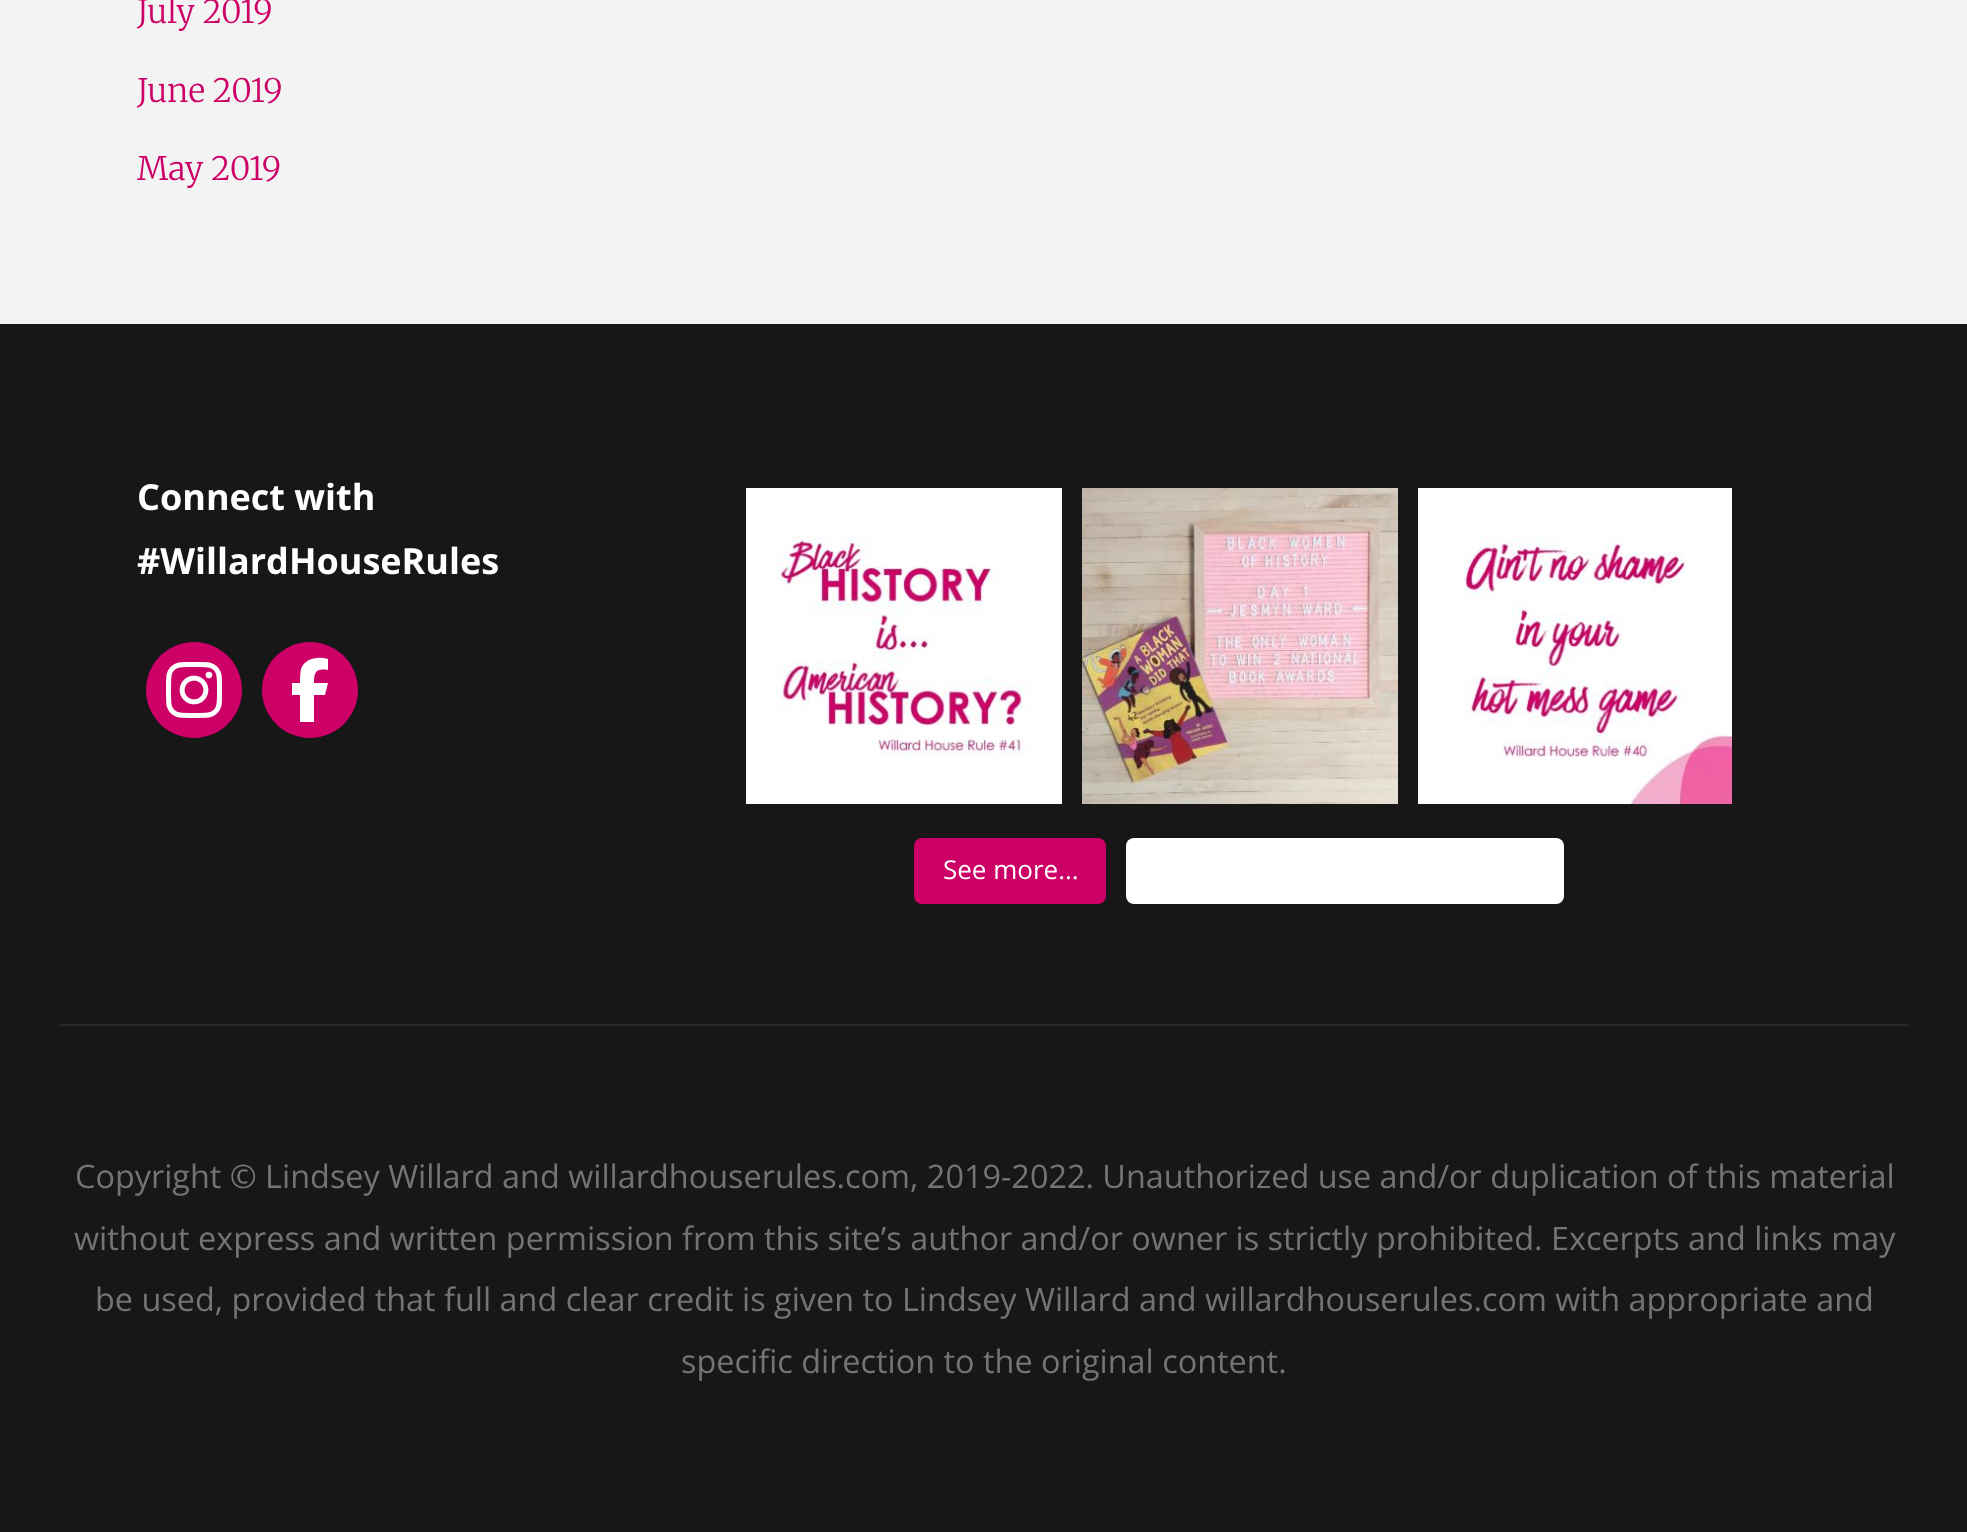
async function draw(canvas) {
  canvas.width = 1967
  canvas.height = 1532
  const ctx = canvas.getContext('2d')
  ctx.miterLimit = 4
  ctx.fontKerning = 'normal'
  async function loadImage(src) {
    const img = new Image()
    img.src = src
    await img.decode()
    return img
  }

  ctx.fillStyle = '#f3f3f3'
  ctx.fillRect(0, 0, 1967, 1532)
  ctx.font = '300 32.4px Merriweather'
  ctx.fillStyle = '#c06'
  ctx.fillText('July 2019', 137, 23)
  ctx.fillText('June 2019', 137, 102)
  ctx.fillText('May 2019', 137, 180)
  ctx.fillStyle = '#171717'
  ctx.fillRect(0, 324, 1967, 1208)
  ctx.fillStyle = '#2a2a2a'
  ctx.fillRect(60, 1024, 1848, 2)
  ctx.font = 'bold 36px Open Sans'
  ctx.fillStyle = '#fff'
  ctx.fillText('Connect with', 137, 510)
  ctx.fillText('#WillardHouseRules', 137, 574)
  ctx.fillStyle = '#c06'
  ctx.beginPath()
  ctx.arc(194, 690, 48, 0, 2 * Math.PI)
  ctx.fill()
  ctx.drawImage(await loadImage('image0.png'), 166, 662, 56, 56)
  ctx.beginPath()
  ctx.arc(310, 690, 48, 0, 2 * Math.PI)
  ctx.fill()
  ctx.fillStyle = '#fff'
  ctx.beginPath()
  ctx.moveTo(300, 695)
  ctx.lineTo(300, 722)
  ctx.lineTo(300, 695)
  ctx.lineTo(300, 722)
  ctx.lineTo(314, 722)
  ctx.lineTo(314, 695)
  ctx.lineTo(325, 695)
  ctx.lineTo(328, 683)
  ctx.lineTo(314, 683)
  ctx.bezierCurveTo(314, 672, 316, 668, 328, 670)
  ctx.lineTo(328, 659)
  ctx.bezierCurveTo(318, 656, 305, 658, 301, 669)
  ctx.bezierCurveTo(300, 674, 300, 679, 300, 683)
  ctx.lineTo(292, 683)
  ctx.lineTo(292, 695)
  ctx.closePath()
  ctx.fill()
  ctx.drawImage(await loadImage('image1.png'), 746, 488, 316, 316)
  ctx.drawImage(await loadImage('image2.png'), 1082, 488, 316, 316)
  ctx.drawImage(await loadImage('image3.png'), 1418, 488, 314, 316)
  ctx.fillStyle = '#c06'
  ctx.beginPath()
  ctx.roundRect(914, 838, 192, 66, 8)
  ctx.fill()
  ctx.font = '26px Open Sans'
  ctx.fillStyle = '#fff'
  ctx.fillText('See more...', 943, 879)
  ctx.beginPath()
  ctx.roundRect(1126, 838, 438, 66, 8)
  ctx.fill()
  ctx.font = '32.4px Open Sans'
  ctx.fillStyle = '#747475'
  ctx.fillText('Copyright © Lindsey Willard and willardhouserules.com, 2019-2022. Unauthorized use and/or duplication of this material', 75, 1188)
  ctx.fillText('without express and written permission from this site’s author and/or owner is strictly prohibited. Excerpts and links may', 74, 1250)
  ctx.fillText('be used, provided that full and clear credit is given to Lindsey Willard and willardhouserules.com with appropriate and', 95, 1311)
  ctx.fillText('specific direction to the original content.', 681, 1373)
}

draw(document.querySelector('canvas'))
